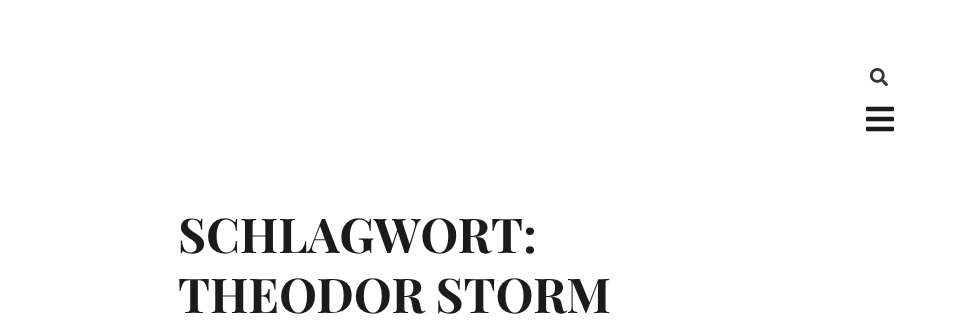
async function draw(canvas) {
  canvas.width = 956
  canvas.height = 328
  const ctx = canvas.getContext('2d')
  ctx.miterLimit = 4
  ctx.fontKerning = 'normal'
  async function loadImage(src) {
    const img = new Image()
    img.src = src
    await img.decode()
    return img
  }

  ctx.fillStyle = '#fff'
  ctx.fillRect(0, 0, 956, 328)
  ctx.drawImage(await loadImage('image0.png'), 869, 68, 19, 19)
  ctx.drawImage(await loadImage('image1.png'), 866, 106, 28, 26)
  ctx.font = 'bold 48px Playfair Display'
  ctx.fillStyle = '#1b1a1c'
  ctx.fillText('SCHLAGWORT:', 178, 253)
  ctx.fillText('THEODOR STORM', 178, 313)
}

draw(document.querySelector('canvas'))
